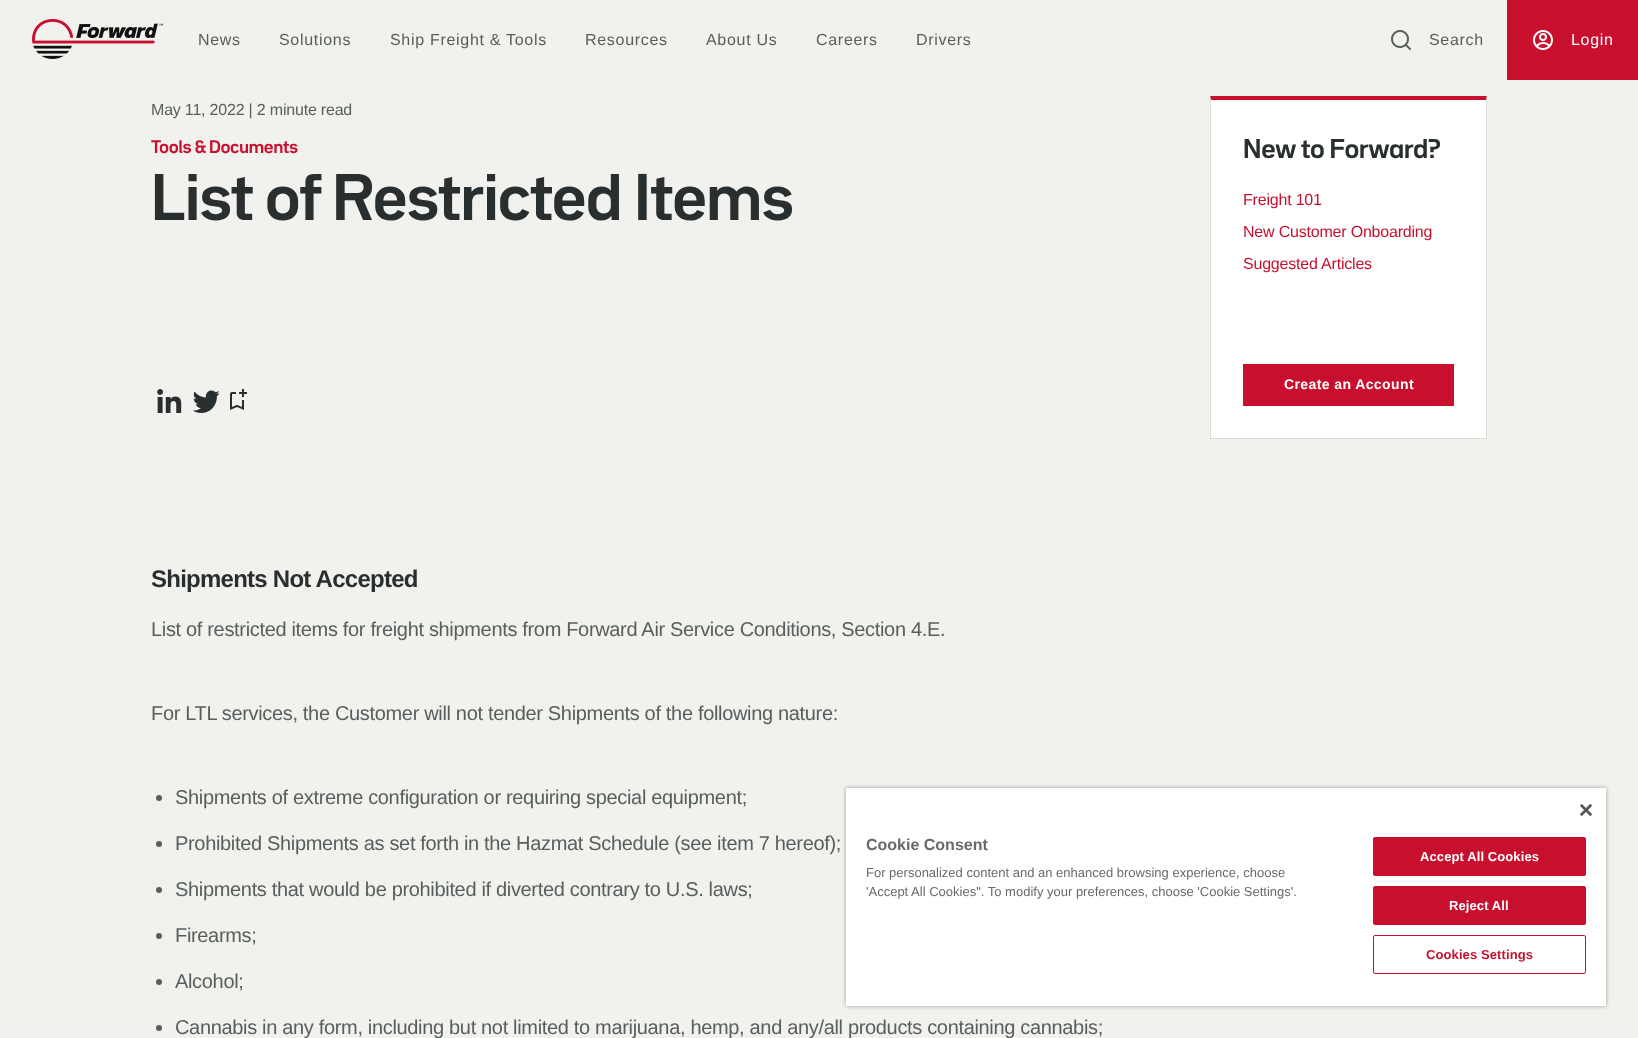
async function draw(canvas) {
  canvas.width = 1638
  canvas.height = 1038
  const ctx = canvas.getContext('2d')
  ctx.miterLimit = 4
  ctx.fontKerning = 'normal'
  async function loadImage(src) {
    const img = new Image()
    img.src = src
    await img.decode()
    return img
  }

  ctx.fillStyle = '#f1f1ee'
  ctx.fillRect(0, 0, 1638, 1038)
  ctx.drawImage(await loadImage('image0.png'), 32, 19, 131, 40)
  ctx.letterSpacing = '0.7px'
  ctx.font = '16px Liberation Sans'
  ctx.fillStyle = '#565f5c'
  ctx.fillText('News', 198, 45)
  ctx.fillText('Solutions', 279, 45)
  ctx.fillText('Ship Freight & Tools', 390, 45)
  ctx.fillText('Resources', 585, 45)
  ctx.fillText('About Us', 706, 45)
  ctx.fillText('Careers', 816, 45)
  ctx.fillText('Drivers', 916, 45)
  ctx.drawImage(await loadImage('image1.png'), 1391, 30, 21, 21)
  ctx.fillText('Search', 1429, 45)
  ctx.fillStyle = '#c8102e'
  ctx.fillRect(1507, 0, 131, 80)
  ctx.drawImage(await loadImage('image2.png'), 1533, 30, 20, 20)
  ctx.fillStyle = '#fff'
  ctx.fillText('Login', 1571, 45)
  ctx.letterSpacing = '-0.2px'
  ctx.fillStyle = '#565f5c'
  ctx.fillText('May 11, 2022 | 2 minute read', 151, 115)
  ctx.letterSpacing = '0px'
  ctx.font = 'bold 16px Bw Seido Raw'
  ctx.fillStyle = '#c8102e'
  ctx.fillText('Tools & Documents', 151, 153)
  ctx.font = 'bold 58px Bw Seido Raw'
  ctx.fillStyle = '#292e2e'
  ctx.fillText('List of Restricted Items', 151, 220)
  ctx.drawImage(await loadImage('image3.png'), 157, 389, 25, 24)
  ctx.drawImage(await loadImage('image4.png'), 192, 390, 28, 23)
  ctx.drawImage(await loadImage('image5.png'), 230, 389, 17, 21)
  ctx.letterSpacing = '-0.75px'
  ctx.font = 'bold 24px Liberation Sans'
  ctx.fillText('Shipments Not Accepted', 151, 587)
  ctx.letterSpacing = '-0.33px'
  ctx.font = '20px Liberation Sans'
  ctx.fillStyle = '#565f5c'
  ctx.fillText('List of restricted items for freight shipments from Forward Air Service Conditions, Section 4.E.', 151, 636)
  ctx.fillText('For LTL services, the Customer will not tender Shipments of the following nature:', 151, 720)
  ctx.beginPath()
  ctx.arc(159, 798, 3, 0, 2 * Math.PI)
  ctx.fill()
  ctx.fillText('Shipments of extreme configuration or requiring special equipment;', 175, 804)
  ctx.beginPath()
  ctx.arc(159, 844, 3, 0, 2 * Math.PI)
  ctx.fill()
  ctx.fillText('Prohibited Shipments as set forth in the Hazmat Schedule (see item 7 hereof);', 175, 850)
  ctx.beginPath()
  ctx.arc(159, 890, 3, 0, 2 * Math.PI)
  ctx.fill()
  ctx.fillText('Shipments that would be prohibited if diverted contrary to U.S. laws;', 175, 896)
  ctx.beginPath()
  ctx.arc(159, 936, 3, 0, 2 * Math.PI)
  ctx.fill()
  ctx.fillText('Firearms;', 175, 942)
  ctx.beginPath()
  ctx.arc(159, 982, 3, 0, 2 * Math.PI)
  ctx.fill()
  ctx.fillText('Alcohol;', 175, 988)
  ctx.beginPath()
  ctx.arc(159, 1028, 3, 0, 2 * Math.PI)
  ctx.fill()
  ctx.fillText('Cannabis in any form, including but not limited to marijuana, hemp, and any/all products containing cannabis;', 175, 1034)
  ctx.fillStyle = '#fff'
  ctx.fillRect(1211, 100, 275, 338)
  ctx.fillStyle = '#c8102e'
  ctx.beginPath()
  ctx.moveTo(1210, 96)
  ctx.lineTo(1487, 96)
  ctx.lineTo(1486, 100)
  ctx.lineTo(1211, 100)
  ctx.closePath()
  ctx.fill()
  ctx.fillStyle = '#dbdbd3'
  ctx.beginPath()
  ctx.moveTo(1487, 96)
  ctx.lineTo(1487, 439)
  ctx.lineTo(1486, 438)
  ctx.lineTo(1486, 100)
  ctx.closePath()
  ctx.fill()
  ctx.fillRect(1210, 438, 277, 1)
  ctx.beginPath()
  ctx.moveTo(1210, 439)
  ctx.lineTo(1210, 96)
  ctx.lineTo(1211, 100)
  ctx.lineTo(1211, 438)
  ctx.closePath()
  ctx.fill()
  ctx.letterSpacing = '0px'
  ctx.font = 'bold 24px Bw Seido Raw'
  ctx.fillStyle = '#292e2e'
  ctx.fillText('New to Forward?', 1243, 158)
  ctx.letterSpacing = '-0.2px'
  ctx.font = '16px Liberation Sans'
  ctx.fillStyle = '#c8102e'
  ctx.fillText('Freight 101', 1243, 205)
  ctx.fillText('New Customer Onboarding', 1243, 237)
  ctx.fillText('Suggested Articles', 1243, 269)
  ctx.fillRect(1243, 364, 211, 42)
  ctx.letterSpacing = '0.4px'
  ctx.font = 'bold 14px Liberation Sans'
  ctx.fillStyle = '#fff'
  ctx.fillText('Create an Account', 1284, 389)
  ctx.fillStyle = '#00000059'
  ctx.filter = 'blur(2px)'
  ctx.beginPath()
  ctx.rect(846, 788, 760, 218)
  ctx.fill()
  ctx.filter = 'none'
  ctx.fillStyle = '#fff'
  ctx.fillRect(846, 788, 760, 218)
  ctx.drawImage(await loadImage('image6.png'), 1580, 804, 12, 12)
  ctx.letterSpacing = '0px'
  ctx.font = 'bold 16px Liberation Sans'
  ctx.fillStyle = '#696969'
  ctx.fillText('Cookie Consent', 866, 850)
  ctx.font = '13px Liberation Sans'
  ctx.fillText('For personalized content and an enhanced browsing experience, choose', 866, 877)
  ctx.fillText('\'Accept All Cookies". To modify your preferences, choose \'Cookie Settings\'.', 866, 896)
  ctx.fillStyle = '#c8102e'
  ctx.beginPath()
  ctx.roundRect(1373.5, 837.5, 212, 38, 1.5)
  ctx.fill()
  ctx.strokeStyle = '#c8102e'
  ctx.stroke()
  ctx.letterSpacing = '0.1px'
  ctx.font = 'bold 13px Liberation Sans'
  ctx.fillStyle = '#fff'
  ctx.fillText('Accept All Cookies', 1420, 861)
  ctx.fillStyle = '#c8102e'
  ctx.beginPath()
  ctx.roundRect(1373.5, 886.5, 212, 38, 1.5)
  ctx.fill()
  ctx.stroke()
  ctx.fillStyle = '#fff'
  ctx.fillText('Reject All', 1449, 910)
  ctx.beginPath()
  ctx.roundRect(1373.5, 935.5, 212, 38, 1.5)
  ctx.stroke()
  ctx.fillStyle = '#c8102e'
  ctx.fillText('Cookies Settings', 1426, 959)
}

draw(document.querySelector('canvas'))
